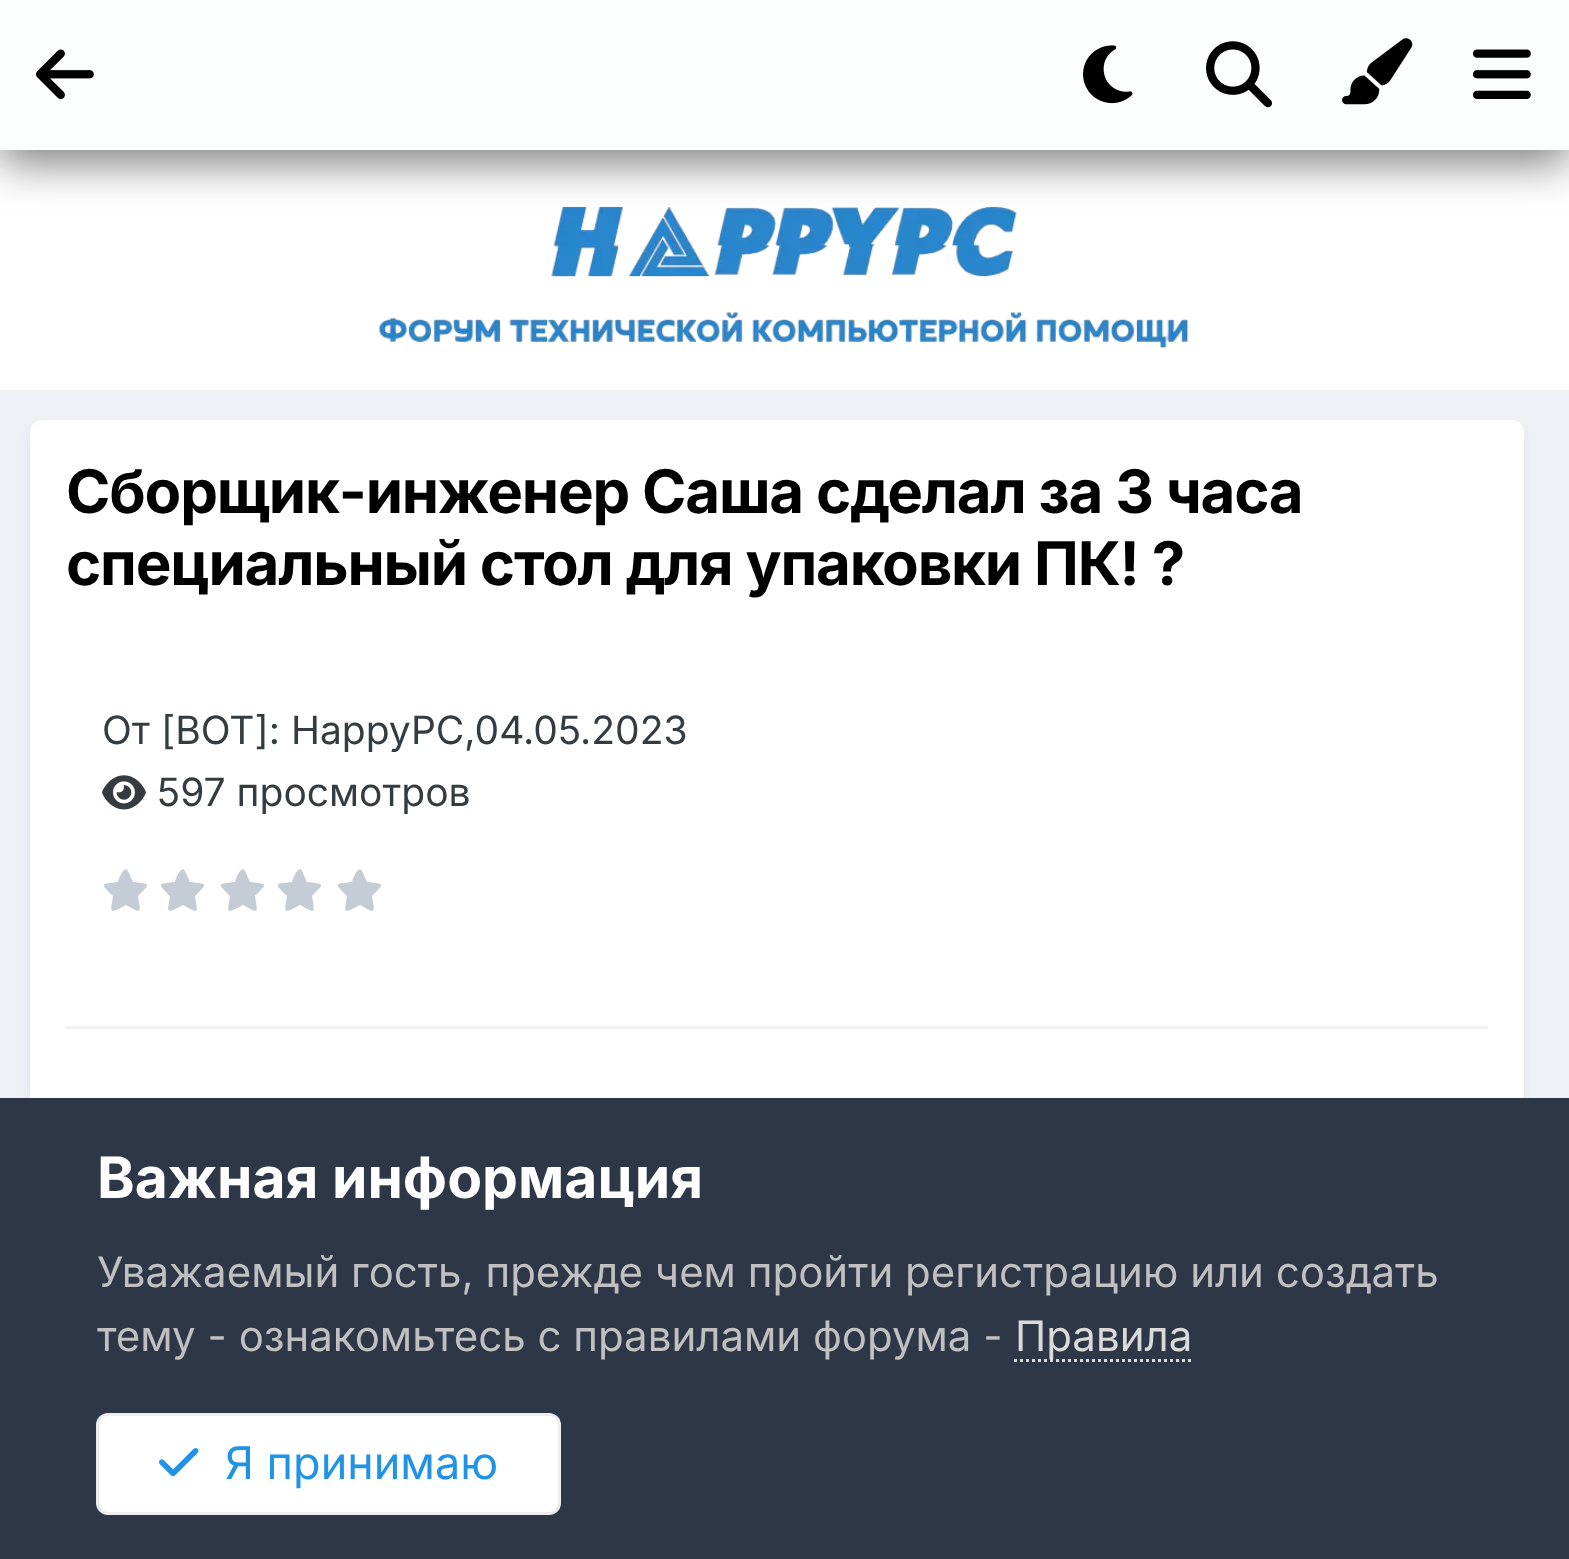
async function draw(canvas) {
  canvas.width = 1569
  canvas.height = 1559
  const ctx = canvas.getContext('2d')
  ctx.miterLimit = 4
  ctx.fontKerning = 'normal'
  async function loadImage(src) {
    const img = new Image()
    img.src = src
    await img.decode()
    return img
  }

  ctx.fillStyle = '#edf0f4'
  ctx.fillRect(0, 0, 1569, 1559)
  ctx.fillStyle = '#fff'
  ctx.fillRect(0, 150, 1569, 240)
  ctx.drawImage(await loadImage('image5.png'), 378, 206, 811, 142)
  ctx.fillStyle = '#00000087'
  ctx.filter = 'blur(22.5px)'
  ctx.beginPath()
  ctx.rect(0, 12, 1569, 150)
  ctx.fill()
  ctx.filter = 'none'
  ctx.fillStyle = '#fcfdfd'
  ctx.fillRect(0, 0, 1569, 150)
  ctx.drawImage(await loadImage('image0.png'), 36, 49, 58, 50)
  ctx.drawImage(await loadImage('image1.png'), 1083, 45, 50, 59)
  ctx.drawImage(await loadImage('image2.png'), 1206, 41, 66, 67)
  ctx.drawImage(await loadImage('image3.png'), 1342, 38, 71, 67)
  ctx.drawImage(await loadImage('image4.png'), 1473, 49, 58, 50)
  ctx.fillStyle = '#2d37481a'
  ctx.filter = 'blur(6px)'
  ctx.beginPath()
  ctx.roundRect(33, 429, 1488, 699, 9)
  ctx.fill()
  ctx.filter = 'none'
  ctx.fillStyle = '#fff'
  ctx.beginPath()
  ctx.roundRect(30, 420, 1494, 705, 12)
  ctx.fill()
  ctx.letterSpacing = '-1.2px'
  ctx.font = 'bold 60px Inter'
  ctx.fillStyle = '#000'
  ctx.fillText('Сборщик-инженер Саша сделал за 3 часа', 66, 513)
  ctx.fillText('специальный стол для упаковки ПК! ?', 66, 585)
  ctx.fillStyle = '#f1f2f5'
  ctx.fillRect(66, 1026, 1422, 3)
  ctx.letterSpacing = '0px'
  ctx.font = '39px Inter'
  ctx.fillStyle = '#353c41'
  ctx.fillText('От [BOT]: HappyPC,04.05.2023', 102, 744)
  ctx.drawImage(await loadImage('image6.png'), 102, 775, 44, 35)
  ctx.fillText('597 просмотров', 157, 806)
  ctx.fillStyle = '#c6ccd5'
  ctx.beginPath()
  ctx.moveTo(128, 871)
  ctx.bezierCurveTo(124, 864, 118, 881, 118, 882)
  ctx.bezierCurveTo(100, 884, 100, 883, 113, 896)
  ctx.bezierCurveTo(110, 914, 109, 914, 126, 905)
  ctx.bezierCurveTo(142, 914, 141, 914, 138, 896)
  ctx.bezierCurveTo(151, 883, 151, 884, 133, 882)
  ctx.closePath()
  ctx.fill()
  ctx.beginPath()
  ctx.moveTo(185, 871)
  ctx.bezierCurveTo(181, 864, 175, 881, 175, 882)
  ctx.bezierCurveTo(157, 884, 157, 883, 170, 896)
  ctx.bezierCurveTo(167, 914, 166, 914, 183, 905)
  ctx.bezierCurveTo(199, 914, 198, 914, 195, 896)
  ctx.bezierCurveTo(208, 883, 208, 884, 190, 882)
  ctx.closePath()
  ctx.fill()
  ctx.beginPath()
  ctx.moveTo(245, 871)
  ctx.bezierCurveTo(241, 864, 235, 881, 235, 882)
  ctx.bezierCurveTo(217, 884, 217, 883, 230, 896)
  ctx.bezierCurveTo(227, 914, 226, 914, 243, 905)
  ctx.bezierCurveTo(259, 914, 258, 914, 255, 896)
  ctx.bezierCurveTo(268, 883, 268, 884, 250, 882)
  ctx.closePath()
  ctx.fill()
  ctx.beginPath()
  ctx.moveTo(302, 871)
  ctx.bezierCurveTo(298, 864, 292, 881, 292, 882)
  ctx.bezierCurveTo(274, 884, 274, 883, 287, 896)
  ctx.bezierCurveTo(284, 914, 283, 914, 300, 905)
  ctx.bezierCurveTo(316, 914, 315, 914, 312, 896)
  ctx.bezierCurveTo(325, 883, 325, 884, 307, 882)
  ctx.closePath()
  ctx.fill()
  ctx.beginPath()
  ctx.moveTo(362, 871)
  ctx.bezierCurveTo(358, 864, 352, 881, 352, 882)
  ctx.bezierCurveTo(334, 884, 334, 883, 347, 896)
  ctx.bezierCurveTo(344, 914, 343, 914, 360, 905)
  ctx.bezierCurveTo(376, 914, 375, 914, 372, 896)
  ctx.bezierCurveTo(385, 883, 385, 884, 367, 882)
  ctx.closePath()
  ctx.fill()
  ctx.fillStyle = '#2d3748'
  ctx.fillRect(0, 1098, 1569, 461)
  ctx.font = 'bold 57px Inter'
  ctx.fillStyle = '#fff'
  ctx.fillText('Важная информация', 97, 1198)
  ctx.font = '42px Inter'
  ctx.fillStyle = '#c0c0c0'
  ctx.fillText('Уважаемый гость, прежде чем пройти регистрацию или создать', 97, 1287)
  ctx.fillText('тему - ознакомьтесь с правилами форума -', 97, 1351)
  ctx.beginPath()
  ctx.moveTo(1014, 1360.5)
  ctx.lineTo(1191, 1360.5)
  ctx.strokeStyle = '#dadada'
  ctx.lineWidth = 3
  ctx.setLineDash([3, 3])
  ctx.stroke()
  ctx.fillStyle = '#dadada'
  ctx.fillText('Правила', 1015, 1351)
  ctx.fillStyle = '#fff'
  ctx.beginPath()
  ctx.roundRect(96, 1413, 465, 102, 12)
  ctx.fill()
  ctx.beginPath()
  ctx.roundRect(97.5, 1414.5, 462, 99, 10.5)
  ctx.strokeStyle = '#00000012'
  ctx.setLineDash([])
  ctx.stroke()
  ctx.drawImage(await loadImage('image7.png'), 159, 1448, 40, 29)
  ctx.font = '45px Inter'
  ctx.fillStyle = '#2193e6'
  ctx.fillText('Я принимаю', 225, 1479)
}

draw(document.querySelector('canvas'))
